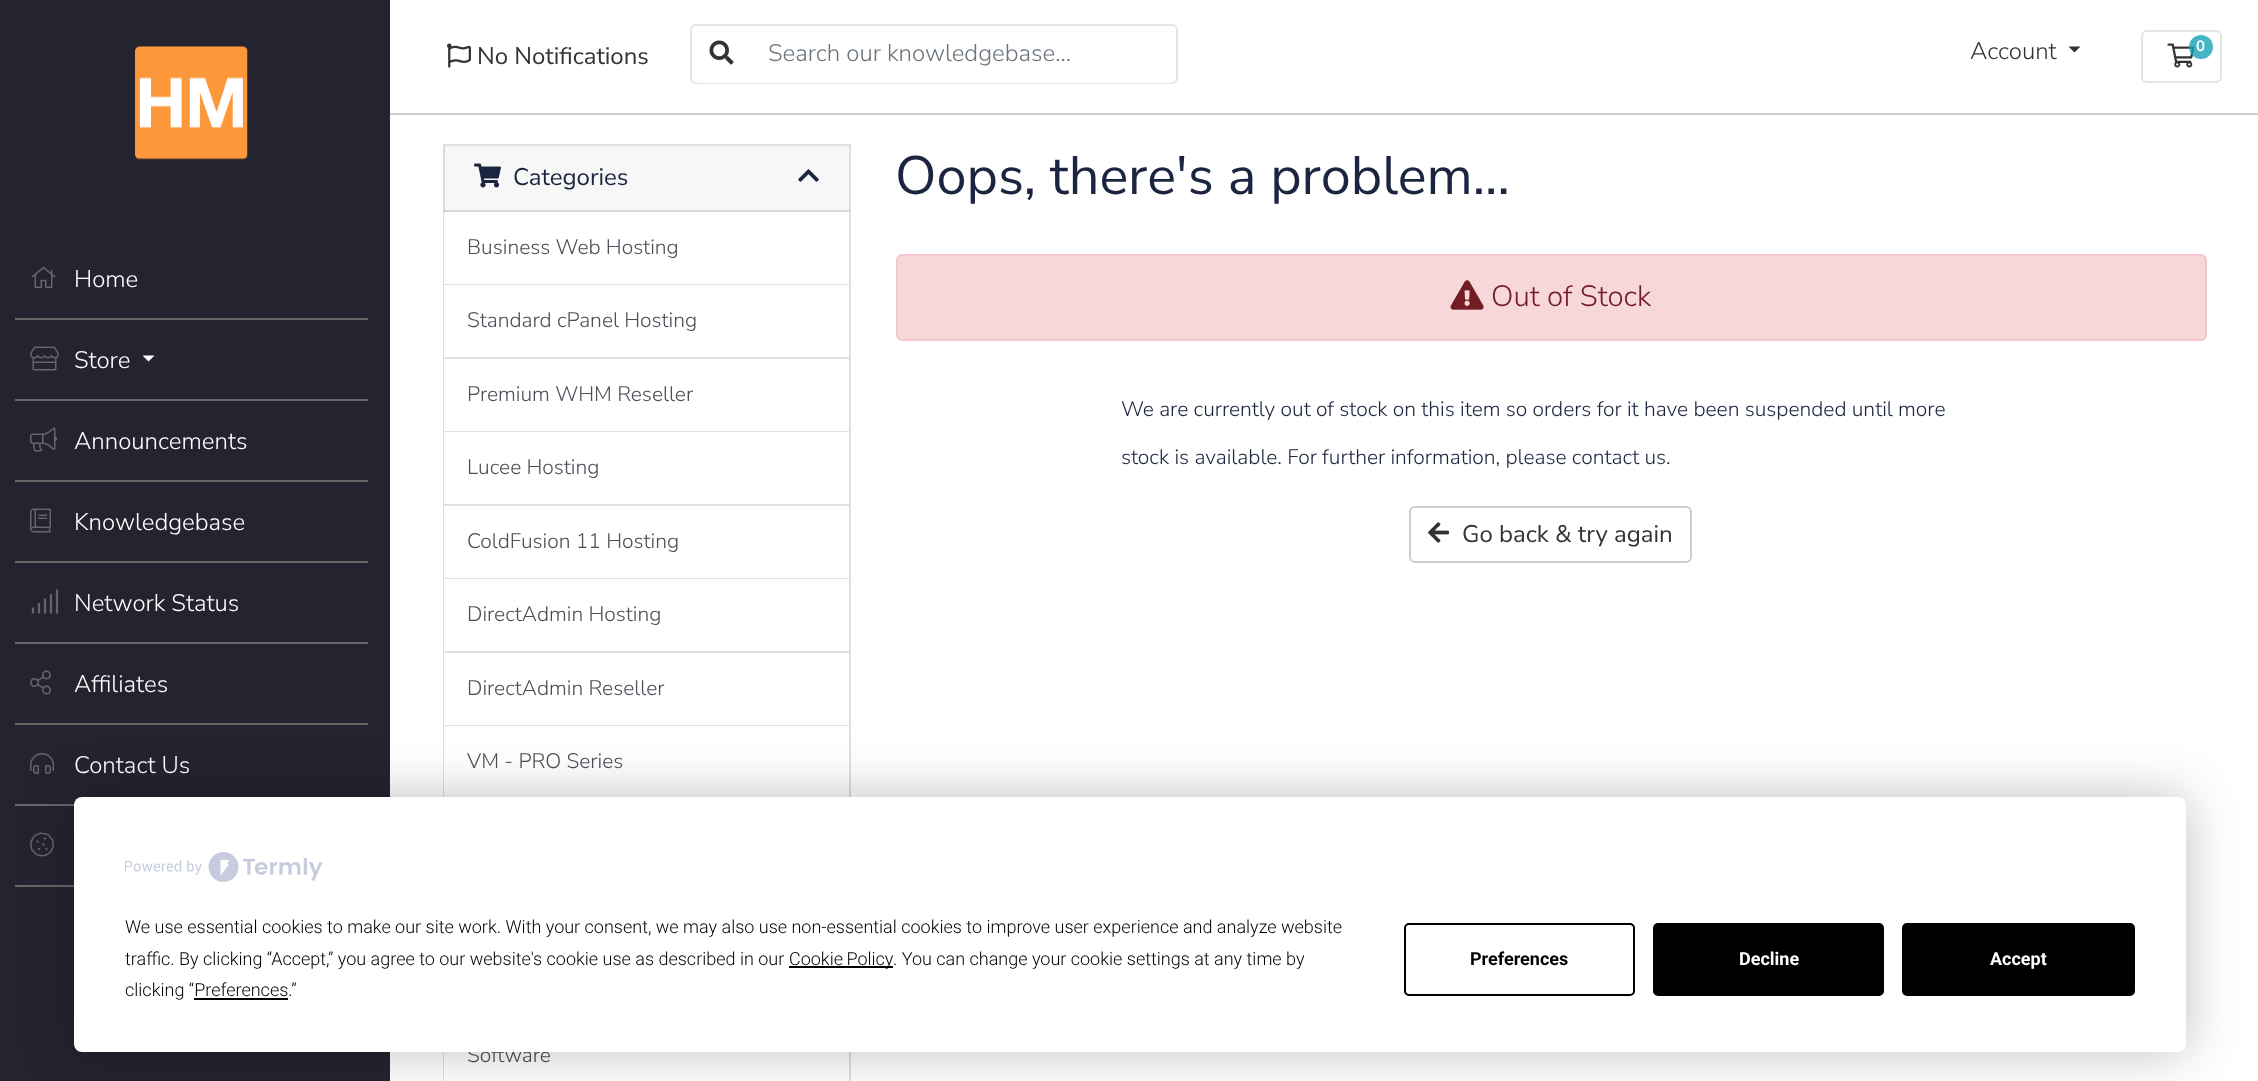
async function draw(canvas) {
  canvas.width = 2258
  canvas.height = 1081
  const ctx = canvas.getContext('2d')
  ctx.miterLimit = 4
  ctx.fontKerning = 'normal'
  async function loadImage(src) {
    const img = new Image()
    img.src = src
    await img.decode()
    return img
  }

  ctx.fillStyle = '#fff'
  ctx.fillRect(0, 0, 2258, 1081)
  ctx.fillStyle = '#242330'
  ctx.fillRect(0, 0, 390, 1081)
  ctx.drawImage(await loadImage('image0.png'), 135, 46, 113, 114)
  ctx.fillStyle = '#666'
  ctx.fillRect(15, 318, 353, 2)
  ctx.drawImage(await loadImage('image1.png'), 31, 267, 25, 21)
  ctx.font = '300 24px Nunito Sans'
  ctx.fillStyle = '#fff'
  ctx.fillText('Home', 74, 287)
  ctx.fillStyle = '#666'
  ctx.fillRect(15, 399, 353, 2)
  ctx.drawImage(await loadImage('image2.png'), 30, 346, 29, 25)
  ctx.fillStyle = '#fff'
  ctx.fillText('Store', 74, 368)
  ctx.beginPath()
  ctx.moveTo(142.5, 355.5)
  ctx.lineTo(154.5, 355.5)
  ctx.lineTo(148.5, 361.5)
  ctx.closePath()
  ctx.fill()
  ctx.fillStyle = '#666'
  ctx.fillRect(15, 480, 353, 2)
  ctx.drawImage(await loadImage('image3.png'), 30, 427, 27, 25)
  ctx.fillStyle = '#fff'
  ctx.fillText('Announcements', 74, 449)
  ctx.fillStyle = '#666'
  ctx.fillRect(15, 561, 353, 2)
  ctx.drawImage(await loadImage('image4.png'), 30, 508, 21, 25)
  ctx.fillStyle = '#fff'
  ctx.fillText('Knowledgebase', 74, 530)
  ctx.fillStyle = '#666'
  ctx.fillRect(15, 642, 353, 2)
  ctx.drawImage(await loadImage('image5.png'), 31, 589, 28, 25)
  ctx.fillStyle = '#fff'
  ctx.fillText('Network Status', 74, 611)
  ctx.fillStyle = '#666'
  ctx.fillRect(15, 723, 353, 2)
  ctx.drawImage(await loadImage('image6.png'), 30, 670, 21, 25)
  ctx.fillStyle = '#fff'
  ctx.fillText('Affiliates', 74, 692)
  ctx.fillStyle = '#666'
  ctx.fillRect(15, 804, 60, 2)
  ctx.drawImage(await loadImage('image7.png'), 30, 753, 24, 21)
  ctx.fillStyle = '#fff'
  ctx.fillText('Contact Us', 74, 773)
  ctx.fillStyle = '#666'
  ctx.fillRect(15, 885, 59, 2)
  ctx.drawImage(await loadImage('image8.png'), 30, 832, 24, 25)
  ctx.fillStyle = '#ccc'
  ctx.fillRect(390, 113, 1868, 2)
  ctx.drawImage(await loadImage('image9.png'), 447, 43, 24, 25)
  ctx.font = '24px Nunito Sans'
  ctx.fillStyle = '#333'
  ctx.fillText('No Notifications', 477, 64)
  ctx.beginPath()
  ctx.roundRect(691, 25, 486, 58, 5)
  ctx.strokeStyle = '#e5e5e5'
  ctx.lineWidth = 2
  ctx.stroke()
  ctx.fillStyle = '#fff'
  ctx.beginPath()
  ctx.roundRect(750, 26, 426, 57, [0, 6, 6, 0])
  ctx.fill()
  ctx.beginPath()
  ctx.roundRect(692, 26, 60, 57, [6, 0, 0, 6])
  ctx.fill()
  ctx.drawImage(await loadImage('image10.png'), 709, 40, 25, 25)
  ctx.font = '300 24px Nunito Sans'
  ctx.fillStyle = '#6c757d'
  ctx.fillText('Search our knowledgebase...', 768, 61)
  ctx.fillStyle = '#333'
  ctx.fillText('Account', 1970, 59)
  ctx.beginPath()
  ctx.moveTo(2068.5, 46.5)
  ctx.lineTo(2080.5, 46.5)
  ctx.lineTo(2074.5, 52.5)
  ctx.closePath()
  ctx.fill()
  ctx.beginPath()
  ctx.roundRect(2142, 31, 79, 51, 5)
  ctx.stroke()
  ctx.drawImage(await loadImage('image11.png'), 2167, 43, 28, 25)
  ctx.fillStyle = '#17a2b8cc'
  ctx.beginPath()
  ctx.arc(2201, 47, 12, 0, 2 * Math.PI)
  ctx.fill()
  ctx.font = 'bold 15px Nunito Sans'
  ctx.fillStyle = '#fff'
  ctx.fillText('0', 2196, 51)
  ctx.strokeStyle = '#dfdfdf'
  ctx.strokeRect(444, 145, 406, 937)
  ctx.fillStyle = '#00000008'
  ctx.fillRect(444, 146, 405, 66)
  ctx.fillStyle = '#0000001f'
  ctx.fillRect(444, 210, 405, 2)
  ctx.drawImage(await loadImage('image12.png'), 474, 163, 27, 25)
  ctx.font = '24px Nunito Sans'
  ctx.fillStyle = '#1c2540'
  ctx.fillText('Categories', 513, 185)
  ctx.drawImage(await loadImage('image13.png'), 798, 169, 21, 13)
  ctx.fillStyle = '#fff'
  ctx.fillRect(444, 212, 1, 145)
  ctx.fillStyle = '#0000001f'
  ctx.fillRect(444, 284, 405, 1)
  ctx.font = '300 21px Nunito Sans'
  ctx.fillStyle = '#495057'
  ctx.fillText('Business Web Hosting', 467, 254)
  ctx.fillStyle = '#dfdfdf'
  ctx.fillRect(444, 357, 405, 2)
  ctx.fillStyle = '#495057'
  ctx.fillText('Standard cPanel Hosting', 467, 327)
  ctx.fillStyle = '#fff'
  ctx.fillRect(444, 359, 1, 145)
  ctx.fillStyle = '#0000001f'
  ctx.fillRect(444, 431, 405, 1)
  ctx.fillStyle = '#495057'
  ctx.fillText('Premium WHM Reseller', 467, 401)
  ctx.fillStyle = '#dfdfdf'
  ctx.fillRect(444, 504, 405, 2)
  ctx.fillStyle = '#495057'
  ctx.fillText('Lucee Hosting', 467, 474)
  ctx.fillStyle = '#fff'
  ctx.fillRect(444, 506, 1, 145)
  ctx.fillStyle = '#0000001f'
  ctx.fillRect(444, 578, 405, 1)
  ctx.fillStyle = '#495057'
  ctx.fillText('ColdFusion 11 Hosting', 467, 548)
  ctx.fillStyle = '#dfdfdf'
  ctx.fillRect(444, 651, 405, 2)
  ctx.fillStyle = '#495057'
  ctx.fillText('DirectAdmin Hosting', 467, 621)
  ctx.fillStyle = '#fff'
  ctx.fillRect(444, 653, 1, 144)
  ctx.fillStyle = '#0000001f'
  ctx.fillRect(444, 725, 405, 1)
  ctx.fillStyle = '#495057'
  ctx.fillText('DirectAdmin Reseller', 467, 695)
  ctx.fillText('VM - PRO Series', 467, 768)
  ctx.fillStyle = '#fff'
  ctx.fillRect(444, 1052, 1, 29)
  ctx.fillStyle = '#495057'
  ctx.fillText('Software', 467, 1062)
  ctx.font = '54px Nunito Sans'
  ctx.fillStyle = '#1c2540'
  ctx.fillText('Oops, there\'s a problem...', 895, 194)
  ctx.fillStyle = '#f8d7da'
  ctx.beginPath()
  ctx.roundRect(897, 255, 1309, 85, 5)
  ctx.fill()
  ctx.strokeStyle = '#f5c6cb'
  ctx.stroke()
  ctx.drawImage(await loadImage('image14.png'), 1450, 280, 34, 30)
  ctx.font = '300 29.5px Nunito Sans'
  ctx.fillStyle = '#721c24'
  ctx.fillText('Out of Stock', 1491, 306)
  ctx.font = '300 21px Nunito Sans'
  ctx.fillStyle = '#1c2540'
  ctx.fillText('We are currently out of stock on this item so orders for it have been suspended until more', 1121, 416)
  ctx.fillText('stock is available. For further information, please contact us.', 1121, 464)
  ctx.beginPath()
  ctx.roundRect(1410, 507, 281, 55, 5)
  ctx.strokeStyle = '#ccc'
  ctx.stroke()
  ctx.drawImage(await loadImage('image15.png'), 1428, 522, 22, 21)
  ctx.font = '24px Nunito Sans'
  ctx.fillStyle = '#333'
  ctx.fillText('Go back & try again', 1462, 542)
  ctx.fillStyle = '#00000040'
  ctx.filter = 'blur(26px)'
  ctx.beginPath()
  ctx.roundRect(74, 797, 2112, 255, 8)
  ctx.fill()
  ctx.filter = 'none'
  ctx.fillStyle = '#fff'
  ctx.beginPath()
  ctx.roundRect(74, 797, 2112, 255, 8)
  ctx.fill()
  ctx.drawImage(await loadImage('image16.png'), 125, 852, 198, 30)
  ctx.font = '300 18px Roboto'
  ctx.fillStyle = '#000'
  ctx.fillText('We use essential cookies to make our site work. With your consent, we may also use non-essential cookies to improve user experience and analyze website', 125, 933)
  ctx.fillText('traffic. By clicking “Accept,” you agree to our website\'s cookie use as described in our', 125, 965)
  ctx.fillRect(789, 966, 104, 2)
  ctx.wordSpacing = '-1px'
  ctx.fillText('Cookie Policy', 789, 965)
  ctx.wordSpacing = '0px'
  ctx.fillText('. You can change your cookie settings at any time by', 893, 965)
  ctx.fillText('clicking “Preferences.”', 125, 996)
  ctx.fillRect(194, 998, 94, 2)
  ctx.beginPath()
  ctx.roundRect(1405, 924, 229, 71, 4)
  ctx.strokeStyle = '#000'
  ctx.stroke()
  ctx.font = 'bold 18px Roboto'
  ctx.fillText('Preferences', 1470, 965)
  ctx.beginPath()
  ctx.roundRect(1654, 924, 229, 71, 4)
  ctx.fill()
  ctx.stroke()
  ctx.fillStyle = '#fff'
  ctx.fillText('Decline', 1739, 965)
  ctx.fillStyle = '#000'
  ctx.beginPath()
  ctx.roundRect(1903, 924, 231, 71, 4)
  ctx.fill()
  ctx.stroke()
  ctx.fillStyle = '#fff'
  ctx.fillText('Accept', 1990, 965)
}

draw(document.querySelector('canvas'))
